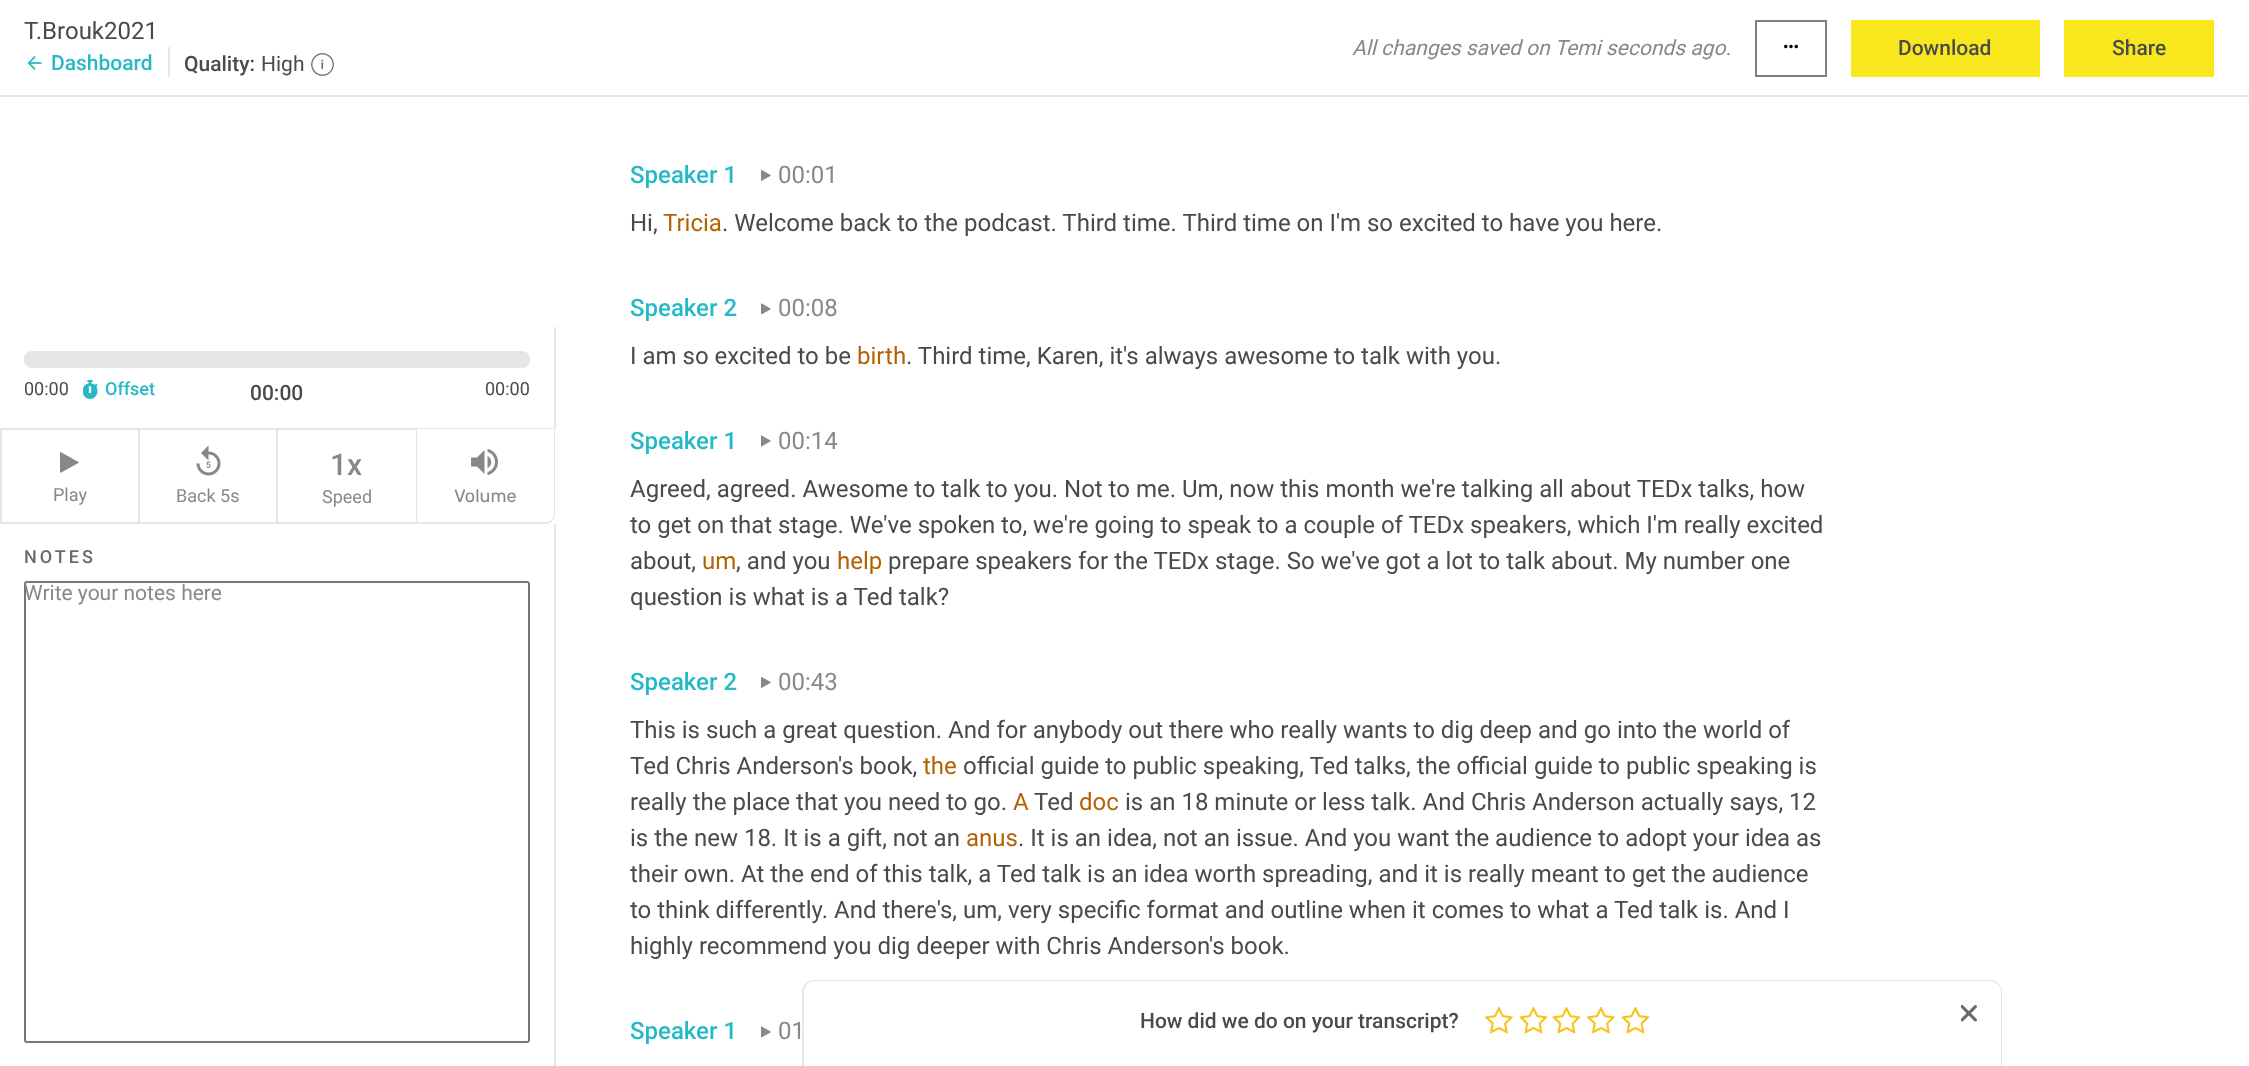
async function draw(canvas) {
  canvas.width = 2249
  canvas.height = 1066
  const ctx = canvas.getContext('2d')
  ctx.miterLimit = 4
  ctx.fontKerning = 'normal'
  async function loadImage(src) {
    const img = new Image()
    img.src = src
    await img.decode()
    return img
  }

  ctx.fillStyle = '#fff'
  ctx.fillRect(0, 0, 2249, 1066)
  ctx.fillStyle = '#e6e6e6'
  ctx.fillRect(0, 95, 2249, 2)
  ctx.font = '24px Roboto'
  ctx.fillStyle = '#4a4a4a'
  ctx.fillText('T.Brouk2021', 24, 39)
  ctx.drawImage(await loadImage('image0.png'), 27, 56, 15, 14)
  ctx.font = '500 21px Roboto'
  ctx.fillStyle = '#25b9c8'
  ctx.fillText('Dashboard', 51, 70)
  ctx.fillStyle = '#e6e6e6'
  ctx.fillRect(168, 47, 2, 30)
  ctx.fillStyle = '#4a4a4a'
  ctx.fillText('Quality:', 184, 71)
  ctx.font = '21px Roboto'
  ctx.fillText('High', 261, 71)
  ctx.drawImage(await loadImage('image1.png'), 311, 53, 23, 23)
  ctx.font = 'italic 21px Roboto'
  ctx.fillStyle = '#888'
  ctx.fillText('All changes saved on Temi seconds ago.', 1352, 55)
  ctx.strokeStyle = '#808080'
  ctx.lineWidth = 2
  ctx.strokeRect(1756, 21, 70, 55)
  ctx.drawImage(await loadImage('image2.png'), 1784, 44, 14, 5)
  ctx.fillStyle = '#f8e71c'
  ctx.fillRect(1851, 20, 189, 57)
  ctx.font = '500 21px Roboto'
  ctx.fillStyle = '#4a4a4a'
  ctx.fillText('Download', 1898, 55)
  ctx.fillStyle = '#f8e71c'
  ctx.fillRect(2064, 20, 150, 57)
  ctx.fillStyle = '#4a4a4a'
  ctx.fillText('Share', 2112, 55)
  ctx.fillStyle = '#e6e6e6'
  ctx.fillRect(554, 327, 2, 101)
  ctx.beginPath()
  ctx.roundRect(24, 351, 506, 17, 8)
  ctx.fill()
  ctx.font = '18px Roboto'
  ctx.fillStyle = '#4a4a4a'
  ctx.fillText('00:00', 24, 395)
  ctx.drawImage(await loadImage('image3.png'), 83, 380, 15, 19)
  ctx.font = '500 18px Roboto'
  ctx.fillStyle = '#25b9c8'
  ctx.fillText('Offset', 105, 395)
  ctx.font = '500 21px Roboto'
  ctx.fillStyle = '#4a4a4a'
  ctx.fillText('00:00', 250, 400)
  ctx.font = '18px Roboto'
  ctx.fillText('00:00', 485, 395)
  ctx.strokeStyle = '#e6e6e6'
  ctx.strokeRect(1, 429, 138, 94)
  ctx.drawImage(await loadImage('image4.png'), 60, 452, 19, 21)
  ctx.fillStyle = '#888'
  ctx.fillText('Play', 53, 501)
  ctx.fillStyle = '#e6e6e6'
  ctx.fillRect(140, 428, 277, 2)
  ctx.fillRect(276, 428, 2, 96)
  ctx.fillRect(140, 522, 138, 2)
  ctx.drawImage(await loadImage('image5.png'), 196, 445, 25, 31)
  ctx.fillStyle = '#888'
  ctx.fillText('Back 5s', 176, 502)
  ctx.fillStyle = '#e6e6e6'
  ctx.fillRect(416, 428, 1, 96)
  ctx.fillRect(278, 522, 139, 2)
  ctx.font = '500 30px Roboto'
  ctx.fillStyle = '#888'
  ctx.fillText('1x', 330, 475)
  ctx.font = '18px Roboto'
  ctx.fillText('Speed', 322, 503)
  ctx.fillStyle = '#e6e6e6'
  ctx.beginPath()
  ctx.moveTo(417, 428)
  ctx.lineTo(555, 428)
  ctx.lineTo(555, 514)
  ctx.bezierCurveTo(555, 519, 551, 524, 546, 524)
  ctx.lineTo(417, 524)
  ctx.closePath()
  ctx.moveTo(417, 429)
  ctx.lineTo(554, 429)
  ctx.lineTo(554, 514)
  ctx.bezierCurveTo(554, 519, 550, 522, 546, 522)
  ctx.lineTo(417, 522)
  ctx.closePath()
  ctx.fill('evenodd')
  ctx.fillStyle = '#fff'
  ctx.beginPath()
  ctx.roundRect(417, 429, 137, 93, [0, 0, 9, 0])
  ctx.fill()
  ctx.drawImage(await loadImage('image6.png'), 471, 448, 27, 28)
  ctx.font = '18px Rubik'
  ctx.fillStyle = '#888'
  ctx.fillText('Volume', 454, 502)
  ctx.fillStyle = '#e6e6e6'
  ctx.fillRect(554, 524, 2, 542)
  ctx.letterSpacing = '3px'
  ctx.font = '500 18px Roboto'
  ctx.fillStyle = '#6a6a6a'
  ctx.fillText('NOTES', 24, 563)
  ctx.beginPath()
  ctx.roundRect(25, 582, 504, 460, 2)
  ctx.strokeStyle = '#767676'
  ctx.stroke()
  ctx.letterSpacing = '0px'
  ctx.font = '21px Roboto'
  ctx.fillStyle = '#888'
  ctx.fillText('Write your notes here', 24, 600)
  ctx.font = '500 24px Roboto'
  ctx.fillStyle = '#25b9c8'
  ctx.fillText('Speaker 1', 630, 183)
  ctx.drawImage(await loadImage('image7.png'), 761, 170, 10, 12)
  ctx.font = '24px Roboto'
  ctx.fillStyle = '#888'
  ctx.fillText('00:01', 778, 183)
  ctx.fillStyle = '#4a4a4a'
  ctx.fillText('Hi,', 630, 231)
  ctx.fillStyle = '#b46100'
  ctx.fillText('Tricia', 663, 231)
  ctx.fillStyle = '#4a4a4a'
  ctx.fillText('. Welcome back to the podcast. Third time. Third time on I\'m so excited to have you here.', 722, 231)
  ctx.font = '500 24px Roboto'
  ctx.fillStyle = '#25b9c8'
  ctx.fillText('Speaker 2', 630, 316)
  ctx.drawImage(await loadImage('image8.png'), 761, 303, 10, 11)
  ctx.font = '24px Roboto'
  ctx.fillStyle = '#888'
  ctx.fillText('00:08', 778, 316)
  ctx.fillStyle = '#4a4a4a'
  ctx.fillText('I am so excited to be', 630, 364)
  ctx.fillStyle = '#b46100'
  ctx.fillText('birth', 857, 364)
  ctx.fillStyle = '#4a4a4a'
  ctx.fillText('. Third time, Karen, it\'s always awesome to talk with you.', 906, 364)
  ctx.font = '500 24px Roboto'
  ctx.fillStyle = '#25b9c8'
  ctx.fillText('Speaker 1', 630, 449)
  ctx.drawImage(await loadImage('image9.png'), 761, 435, 10, 12)
  ctx.font = '24px Roboto'
  ctx.fillStyle = '#888'
  ctx.fillText('00:14', 778, 449)
  ctx.fillStyle = '#4a4a4a'
  ctx.fillText('Agreed, agreed. Awesome to talk to you. Not to me. Um, now this month we\'re talking all about TEDx talks, how', 630, 497)
  ctx.fillText('to get on that stage. We\'ve spoken to, we\'re going to speak to a couple of TEDx speakers, which I\'m really excited', 630, 533)
  ctx.fillText('about,', 630, 569)
  ctx.fillStyle = '#b46100'
  ctx.fillText('um', 702, 569)
  ctx.fillStyle = '#4a4a4a'
  ctx.fillText(', and you', 736, 569)
  ctx.fillStyle = '#b46100'
  ctx.fillText('help', 837, 569)
  ctx.fillStyle = '#4a4a4a'
  ctx.fillText('prepare speakers for the TEDx stage. So we\'ve got a lot to talk about. My number one', 888, 569)
  ctx.fillText('question is what is a Ted talk?', 630, 605)
  ctx.font = '500 24px Roboto'
  ctx.fillStyle = '#25b9c8'
  ctx.fillText('Speaker 2', 630, 690)
  ctx.drawImage(await loadImage('image7.png'), 761, 677, 10, 12)
  ctx.font = '24px Roboto'
  ctx.fillStyle = '#888'
  ctx.fillText('00:43', 778, 690)
  ctx.fillStyle = '#4a4a4a'
  ctx.fillText('This is such a great question. And for anybody out there who really wants to dig deep and go into the world of', 630, 738)
  ctx.fillText('Ted Chris Anderson\'s book,', 630, 774)
  ctx.fillStyle = '#b46100'
  ctx.fillText('the', 923, 774)
  ctx.fillStyle = '#4a4a4a'
  ctx.fillText('official guide to public speaking, Ted talks, the official guide to public speaking is', 963, 774)
  ctx.fillText('really the place that you need to go.', 630, 810)
  ctx.fillStyle = '#b46100'
  ctx.fillText('A', 1013, 810)
  ctx.fillStyle = '#4a4a4a'
  ctx.fillText('Ted', 1034, 810)
  ctx.fillStyle = '#b46100'
  ctx.fillText('doc', 1079, 810)
  ctx.fillStyle = '#4a4a4a'
  ctx.fillText('is an 18 minute or less talk. And Chris Anderson actually says, 12', 1125, 810)
  ctx.fillText('is the new 18. It is a gift, not an', 630, 846)
  ctx.fillStyle = '#b46100'
  ctx.fillText('anus', 966, 846)
  ctx.fillStyle = '#4a4a4a'
  ctx.fillText('. It is an idea, not an issue. And you want the audience to adopt your idea as', 1018, 846)
  ctx.fillText('their own. At the end of this talk, a Ted talk is an idea worth spreading, and it is really meant to get the audience', 630, 882)
  ctx.fillText('to think differently. And there\'s, um, very specific format and outline when it comes to what a Ted talk is. And I', 630, 918)
  ctx.fillText('highly recommend you dig deeper with Chris Anderson\'s book.', 630, 954)
  ctx.font = '500 24px Roboto'
  ctx.fillStyle = '#25b9c8'
  ctx.fillText('Speaker 1', 630, 1039)
  ctx.drawImage(await loadImage('image9.png'), 761, 1026, 10, 12)
  ctx.font = '24px Roboto'
  ctx.fillStyle = '#888'
  ctx.fillText('01', 778, 1039)
  ctx.fillStyle = '#e6e6e6'
  ctx.beginPath()
  ctx.moveTo(814, 980)
  ctx.lineTo(1990, 980)
  ctx.bezierCurveTo(1997, 980, 2002, 985, 2002, 992)
  ctx.lineTo(2002, 1066)
  ctx.lineTo(802, 1066)
  ctx.lineTo(802, 992)
  ctx.bezierCurveTo(802, 985, 808, 980, 814, 980)
  ctx.closePath()
  ctx.moveTo(814, 981)
  ctx.lineTo(1990, 981)
  ctx.bezierCurveTo(1996, 981, 2001, 986, 2001, 992)
  ctx.lineTo(2001, 1066)
  ctx.lineTo(804, 1066)
  ctx.lineTo(804, 992)
  ctx.bezierCurveTo(804, 986, 809, 981, 814, 981)
  ctx.closePath()
  ctx.fill('evenodd')
  ctx.font = '500 21px Roboto'
  ctx.fillStyle = '#4a4a4a'
  ctx.fillText('How did we do on your transcript?', 1140, 1028)
  ctx.drawImage(await loadImage('image10.png'), 1485, 1006, 28, 28)
  ctx.drawImage(await loadImage('image11.png'), 1519, 1006, 29, 28)
  ctx.drawImage(await loadImage('image11.png'), 1552, 1006, 29, 28)
  ctx.drawImage(await loadImage('image10.png'), 1587, 1006, 28, 28)
  ctx.drawImage(await loadImage('image11.png'), 1621, 1006, 29, 28)
  ctx.drawImage(await loadImage('image12.png'), 1961, 1005, 16, 17)
}

draw(document.querySelector('canvas'))
